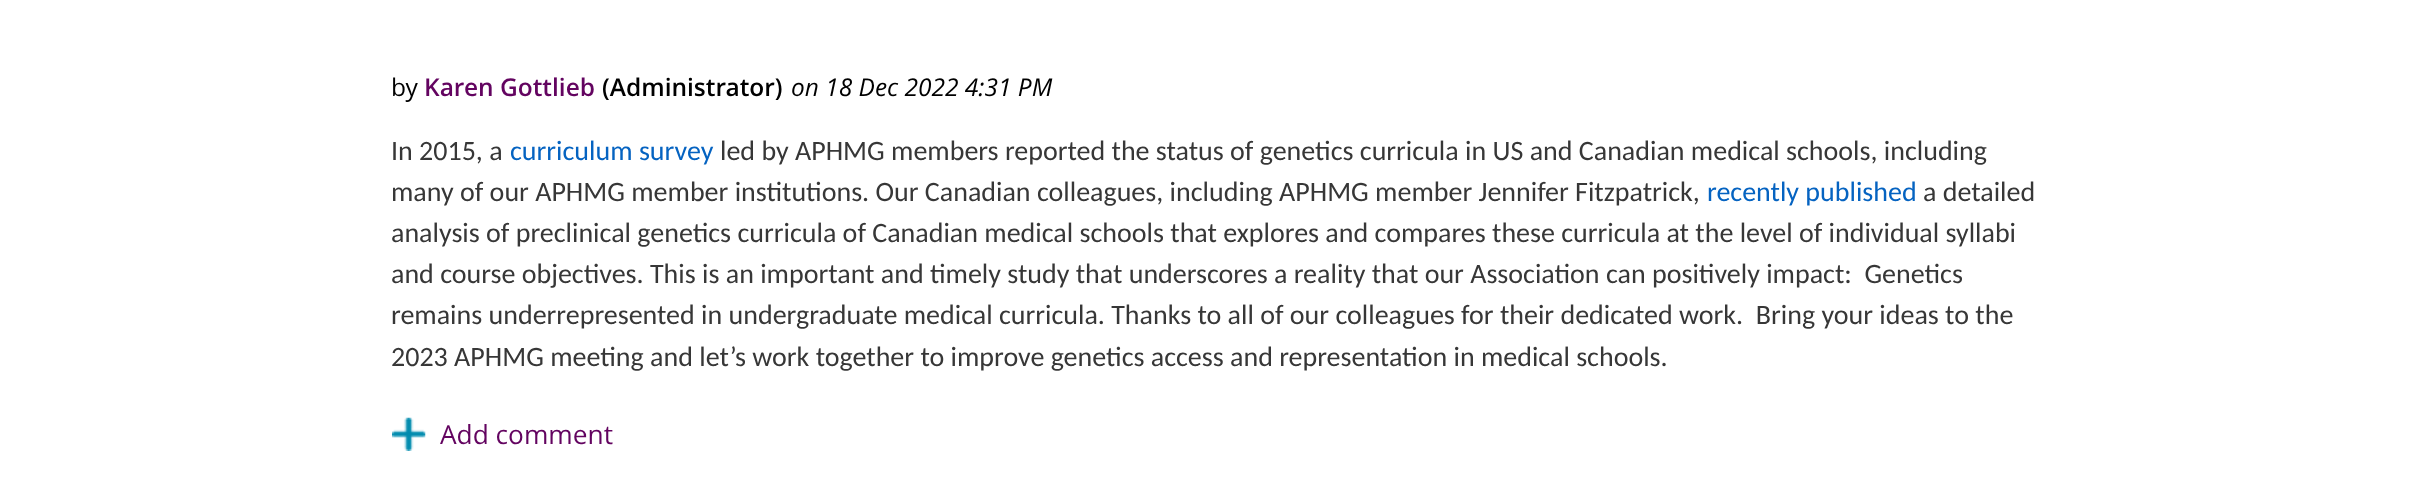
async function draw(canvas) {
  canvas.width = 2426
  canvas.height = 497
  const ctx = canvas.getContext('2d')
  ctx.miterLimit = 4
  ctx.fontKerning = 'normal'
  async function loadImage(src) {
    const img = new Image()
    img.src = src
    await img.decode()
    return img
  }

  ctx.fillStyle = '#fff'
  ctx.fillRect(0, 0, 2426, 497)
  ctx.font = '24.5px Open Sans'
  ctx.fillStyle = '#000'
  ctx.fillText('by', 391, 96)
  ctx.font = '600 24.5px Open Sans'
  ctx.fillStyle = '#630460'
  ctx.fillText('Karen Gottlieb', 424, 96)
  ctx.fillStyle = '#000'
  ctx.fillText('(Administrator)', 602, 96)
  ctx.font = 'italic 24.5px Open Sans'
  ctx.fillText('on 18 Dec 2022 4:31 PM', 791, 96)
  ctx.font = '28px Carlito'
  ctx.fillStyle = '#373737'
  ctx.fillText('In 2015, a', 391, 160)
  ctx.fillStyle = '#0563c1'
  ctx.fillText('curriculum survey', 510, 160)
  ctx.fillStyle = '#373737'
  ctx.fillText('led by APHMG members reported the status of genetics curricula in US and Canadian medical schools, including', 720, 160)
  ctx.fillText('many of our APHMG member institutions. Our Canadian colleagues, including APHMG member Jennifer Fitzpatrick,', 391, 201)
  ctx.fillStyle = '#0563c1'
  ctx.fillText('recently published', 1707, 201)
  ctx.fillStyle = '#373737'
  ctx.fillText('a detailed', 1923, 201)
  ctx.fillText('analysis of preclinical genetics curricula of Canadian medical schools that explores and compares these curricula at the level of individual syllabi', 391, 242)
  ctx.fillText('and course objectives. This is an important and timely study that underscores a reality that our Association can positively impact:  Genetics', 391, 283)
  ctx.fillText('remains underrepresented in undergraduate medical curricula. Thanks to all of our colleagues for their dedicated work.  Bring your ideas to the', 391, 324)
  ctx.fillText('2023 APHMG meeting and let’s work together to improve genetics access and representation in medical schools.', 391, 366)
  ctx.drawImage(await loadImage('image0.png'), 392, 417, 34, 34)
  ctx.font = '26.25px Open Sans'
  ctx.fillStyle = '#630460'
  ctx.fillText('Add comment', 440, 444)
}

draw(document.querySelector('canvas'))
